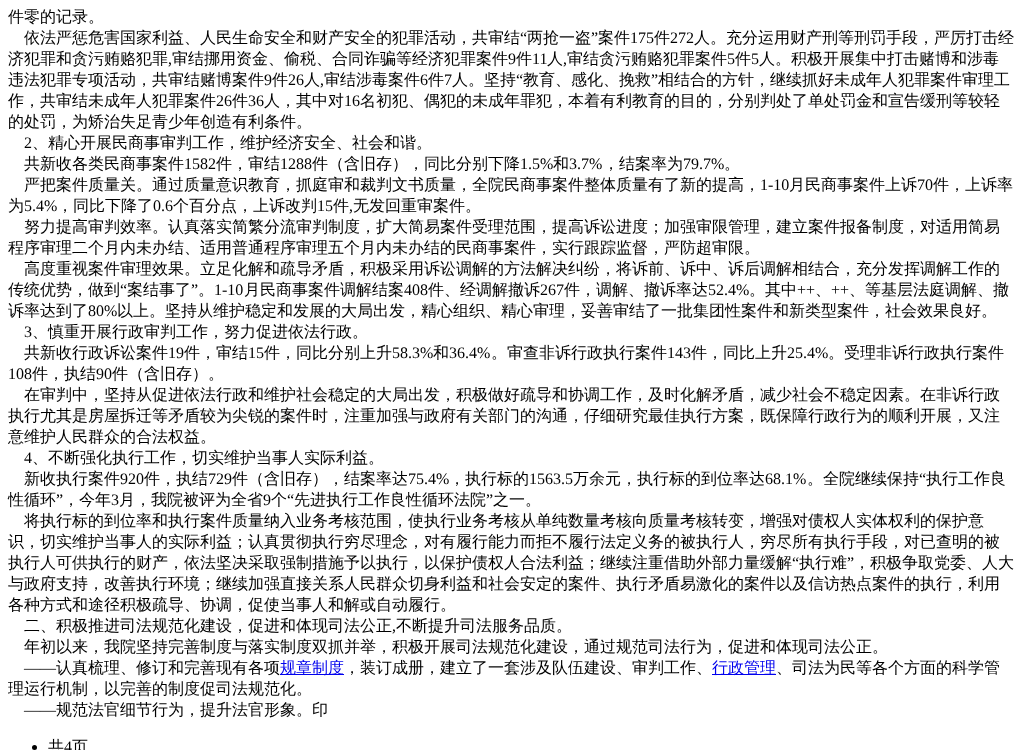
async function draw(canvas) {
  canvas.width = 1023
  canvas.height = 750
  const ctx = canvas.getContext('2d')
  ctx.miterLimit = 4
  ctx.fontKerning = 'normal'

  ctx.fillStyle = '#fff'
  ctx.fillRect(0, 0, 1023, 750)
  ctx.font = '500 16px WenQuanYi Zen Hei'
  ctx.fillStyle = '#000'
  ctx.fillText('件零的记录。', 8, 22)
  ctx.fillText('依法严惩危害国家利益、人民生命安全和财产安全的犯罪活动，共审结', 24, 43)
  ctx.font = '16px Liberation Serif'
  ctx.fillText('“', 520, 43)
  ctx.font = '500 16px WenQuanYi Zen Hei'
  ctx.fillText('两抢一盗', 527, 43)
  ctx.font = '16px Liberation Serif'
  ctx.fillText('”', 591, 43)
  ctx.font = '500 16px WenQuanYi Zen Hei'
  ctx.fillText('案件', 598, 43)
  ctx.font = '16px Liberation Serif'
  ctx.fillText('175', 630, 43)
  ctx.font = '500 16px WenQuanYi Zen Hei'
  ctx.fillText('件', 654, 43)
  ctx.font = '16px Liberation Serif'
  ctx.fillText('272', 670, 43)
  ctx.font = '500 16px WenQuanYi Zen Hei'
  ctx.fillText('人。充分运用财产刑等刑罚手段，严厉打击经', 694, 43)
  ctx.fillText('济犯罪和贪污贿赂犯罪', 8, 64)
  ctx.font = '16px Liberation Serif'
  ctx.fillText(',', 168, 64)
  ctx.font = '500 16px WenQuanYi Zen Hei'
  ctx.fillText('审结挪用资金、偷税、合同诈骗等经济犯罪案件', 172, 64)
  ctx.font = '16px Liberation Serif'
  ctx.fillText('9', 508, 64)
  ctx.font = '500 16px WenQuanYi Zen Hei'
  ctx.fillText('件', 516, 64)
  ctx.font = '16px Liberation Serif'
  ctx.fillText('11', 532, 64)
  ctx.font = '500 16px WenQuanYi Zen Hei'
  ctx.fillText('人', 547, 64)
  ctx.font = '16px Liberation Serif'
  ctx.fillText(',', 563, 64)
  ctx.font = '500 16px WenQuanYi Zen Hei'
  ctx.fillText('审结贪污贿赂犯罪案件', 567, 64)
  ctx.font = '16px Liberation Serif'
  ctx.fillText('5', 727, 64)
  ctx.font = '500 16px WenQuanYi Zen Hei'
  ctx.fillText('件', 735, 64)
  ctx.font = '16px Liberation Serif'
  ctx.fillText('5', 751, 64)
  ctx.font = '500 16px WenQuanYi Zen Hei'
  ctx.fillText('人。积极开展集中打击赌博和涉毒', 759, 64)
  ctx.fillText('违法犯罪专项活动，共审结赌博案件', 8, 85)
  ctx.font = '16px Liberation Serif'
  ctx.fillText('9', 264, 85)
  ctx.font = '500 16px WenQuanYi Zen Hei'
  ctx.fillText('件', 272, 85)
  ctx.font = '16px Liberation Serif'
  ctx.fillText('26', 288, 85)
  ctx.font = '500 16px WenQuanYi Zen Hei'
  ctx.fillText('人', 304, 85)
  ctx.fillText('审结涉毒案件', 324, 85)
  ctx.font = '16px Liberation Serif'
  ctx.fillText('6', 420, 85)
  ctx.font = '500 16px WenQuanYi Zen Hei'
  ctx.fillText('件', 428, 85)
  ctx.font = '16px Liberation Serif'
  ctx.fillText('7', 444, 85)
  ctx.font = '500 16px WenQuanYi Zen Hei'
  ctx.fillText('人。坚持', 452, 85)
  ctx.font = '16px Liberation Serif'
  ctx.fillText('“', 516, 85)
  ctx.font = '500 16px WenQuanYi Zen Hei'
  ctx.fillText('教育、感化、挽救', 523, 85)
  ctx.font = '16px Liberation Serif'
  ctx.fillText('”', 651, 85)
  ctx.font = '500 16px WenQuanYi Zen Hei'
  ctx.fillText('相结合的方针，继续抓好未成年人犯罪案件审理工', 658, 85)
  ctx.font = '16px Liberation Serif'
  ctx.fillText(',', 320, 85)
  ctx.font = '500 16px WenQuanYi Zen Hei'
  ctx.fillText('作，共审结未成年人犯罪案件', 8, 106)
  ctx.font = '16px Liberation Serif'
  ctx.fillText('26', 216, 106)
  ctx.font = '500 16px WenQuanYi Zen Hei'
  ctx.fillText('件', 232, 106)
  ctx.font = '16px Liberation Serif'
  ctx.fillText('36', 248, 106)
  ctx.font = '500 16px WenQuanYi Zen Hei'
  ctx.fillText('人，其中对', 264, 106)
  ctx.font = '16px Liberation Serif'
  ctx.fillText('16', 344, 106)
  ctx.font = '500 16px WenQuanYi Zen Hei'
  ctx.fillText('名初犯、偶犯的未成年罪犯，本着有利教育的目的，分别判处了单处罚金和宣告缓刑等较轻', 360, 106)
  ctx.fillText('的处罚，为矫治失足青少年创造有利条件。', 8, 127)
  ctx.font = '16px Liberation Serif'
  ctx.fillText('2', 24, 148)
  ctx.font = '500 16px WenQuanYi Zen Hei'
  ctx.fillText('、精心开展民商事审判工作，维护经济安全、社会和谐。', 32, 148)
  ctx.fillText('共新收各类民商事案件', 24, 169)
  ctx.font = '16px Liberation Serif'
  ctx.fillText('1582', 184, 169)
  ctx.font = '500 16px WenQuanYi Zen Hei'
  ctx.fillText('件，审结', 216, 169)
  ctx.font = '16px Liberation Serif'
  ctx.fillText('1288', 280, 169)
  ctx.font = '500 16px WenQuanYi Zen Hei'
  ctx.fillText('件（含旧存），同比分别下降', 312, 169)
  ctx.font = '16px Liberation Serif'
  ctx.fillText('1.5%', 520, 169)
  ctx.font = '500 16px WenQuanYi Zen Hei'
  ctx.fillText('和', 553, 169)
  ctx.font = '16px Liberation Serif'
  ctx.fillText('3.7%', 569, 169)
  ctx.font = '500 16px WenQuanYi Zen Hei'
  ctx.fillText('，结案率为', 603, 169)
  ctx.font = '16px Liberation Serif'
  ctx.fillText('79.7%', 683, 169)
  ctx.font = '500 16px WenQuanYi Zen Hei'
  ctx.fillText('。', 724, 169)
  ctx.fillText('严把案件质量关。通过质量意识教育，抓庭审和裁判文书质量，全院民商事案件整体质量有了新的提高，', 24, 190)
  ctx.font = '16px Liberation Serif'
  ctx.fillText('1-10', 760, 190)
  ctx.font = '500 16px WenQuanYi Zen Hei'
  ctx.fillText('月民商事案件上诉', 789, 190)
  ctx.font = '16px Liberation Serif'
  ctx.fillText('70', 917, 190)
  ctx.font = '500 16px WenQuanYi Zen Hei'
  ctx.fillText('件，上诉率', 933, 190)
  ctx.fillText('为', 8, 211)
  ctx.font = '16px Liberation Serif'
  ctx.fillText('5.4%', 24, 211)
  ctx.font = '500 16px WenQuanYi Zen Hei'
  ctx.fillText('，同比下降了', 57, 211)
  ctx.font = '16px Liberation Serif'
  ctx.fillText('0.6', 153, 211)
  ctx.font = '500 16px WenQuanYi Zen Hei'
  ctx.fillText('个百分点，上诉改判', 173, 211)
  ctx.font = '16px Liberation Serif'
  ctx.fillText('15', 317, 211)
  ctx.font = '500 16px WenQuanYi Zen Hei'
  ctx.fillText('件', 333, 211)
  ctx.font = '16px Liberation Serif'
  ctx.fillText(',', 349, 211)
  ctx.font = '500 16px WenQuanYi Zen Hei'
  ctx.fillText('无发回重审案件。', 353, 211)
  ctx.fillText('努力提高审判效率。认真落实简繁分流审判制度，扩大简易案件受理范围，提高诉讼进度；加强审限管理，建立案件报备制度，对适用简易', 24, 232)
  ctx.fillText('程序审理二个月内未办结、适用普通程序审理五个月内未办结的民商事案件，实行跟踪监督，严防超审限。', 8, 253)
  ctx.fillText('高度重视案件审理效果。立足化解和疏导矛盾，积极采用诉讼调解的方法解决纠纷，将诉前、诉中、诉后调解相结合，充分发挥调解工作的', 24, 274)
  ctx.fillText('传统优势，做到', 8, 295)
  ctx.font = '16px Liberation Serif'
  ctx.fillText('“', 120, 295)
  ctx.font = '500 16px WenQuanYi Zen Hei'
  ctx.fillText('案结事了', 127, 295)
  ctx.font = '16px Liberation Serif'
  ctx.fillText('”', 191, 295)
  ctx.fillText('1-10', 214, 295)
  ctx.font = '500 16px WenQuanYi Zen Hei'
  ctx.fillText('月民商事案件调解结案', 244, 295)
  ctx.font = '16px Liberation Serif'
  ctx.fillText('408', 404, 295)
  ctx.font = '500 16px WenQuanYi Zen Hei'
  ctx.fillText('件、经调解撤诉', 428, 295)
  ctx.font = '16px Liberation Serif'
  ctx.fillText('267', 540, 295)
  ctx.font = '500 16px WenQuanYi Zen Hei'
  ctx.fillText('件，调解、撤诉率达', 564, 295)
  ctx.font = '16px Liberation Serif'
  ctx.fillText('52.4%', 708, 295)
  ctx.font = '500 16px WenQuanYi Zen Hei'
  ctx.fillText('。其中', 749, 295)
  ctx.font = '16px Liberation Serif'
  ctx.fillText('++', 797, 295)
  ctx.fillText('++', 831, 295)
  ctx.font = '500 16px WenQuanYi Zen Hei'
  ctx.fillText('、等基层法庭调解、撤', 849, 295)
  ctx.fillText('。', 198, 295)
  ctx.fillText('、', 815, 295)
  ctx.fillText('诉率达到了', 8, 316)
  ctx.font = '16px Liberation Serif'
  ctx.fillText('80%', 88, 316)
  ctx.font = '500 16px WenQuanYi Zen Hei'
  ctx.fillText('以上。坚持从维护稳定和发展的大局出发，精心组织、精心审理，妥善审结了一批集团性案件和新类型案件，社会效果良好。', 117, 316)
  ctx.font = '16px Liberation Serif'
  ctx.fillText('3', 24, 337)
  ctx.font = '500 16px WenQuanYi Zen Hei'
  ctx.fillText('、慎重开展行政审判工作，努力促进依法行政。', 32, 337)
  ctx.fillText('共新收行政诉讼案件', 24, 358)
  ctx.font = '16px Liberation Serif'
  ctx.fillText('19', 168, 358)
  ctx.font = '500 16px WenQuanYi Zen Hei'
  ctx.fillText('件，审结', 184, 358)
  ctx.font = '16px Liberation Serif'
  ctx.fillText('15', 248, 358)
  ctx.font = '500 16px WenQuanYi Zen Hei'
  ctx.fillText('件，同比分别上升', 264, 358)
  ctx.font = '16px Liberation Serif'
  ctx.fillText('58.3%', 392, 358)
  ctx.font = '500 16px WenQuanYi Zen Hei'
  ctx.fillText('和', 433, 358)
  ctx.font = '16px Liberation Serif'
  ctx.fillText('36.4%', 449, 358)
  ctx.font = '500 16px WenQuanYi Zen Hei'
  ctx.fillText('。审查非诉行政执行案件', 491, 358)
  ctx.font = '16px Liberation Serif'
  ctx.fillText('143', 667, 358)
  ctx.font = '500 16px WenQuanYi Zen Hei'
  ctx.fillText('件，同比上升', 691, 358)
  ctx.font = '16px Liberation Serif'
  ctx.fillText('25.4%', 787, 358)
  ctx.font = '500 16px WenQuanYi Zen Hei'
  ctx.fillText('。受理非诉行政执行案件', 828, 358)
  ctx.font = '16px Liberation Serif'
  ctx.fillText('108', 8, 379)
  ctx.font = '500 16px WenQuanYi Zen Hei'
  ctx.fillText('件，执结', 32, 379)
  ctx.font = '16px Liberation Serif'
  ctx.fillText('90', 96, 379)
  ctx.font = '500 16px WenQuanYi Zen Hei'
  ctx.fillText('件（含旧存）。', 112, 379)
  ctx.fillText('在审判中，坚持从促进依法行政和维护社会稳定的大局出发，积极做好疏导和协调工作，及时化解矛盾，减少社会不稳定因素。在非诉行政', 24, 400)
  ctx.fillText('执行尤其是房屋拆迁等矛盾较为尖锐的案件时，注重加强与政府有关部门的沟通，仔细研究最佳执行方案，既保障行政行为的顺利开展，又注', 8, 421)
  ctx.fillText('意维护人民群众的合法权益。', 8, 442)
  ctx.font = '16px Liberation Serif'
  ctx.fillText('4', 24, 463)
  ctx.font = '500 16px WenQuanYi Zen Hei'
  ctx.fillText('、不断强化执行工作，切实维护当事人实际利益。', 32, 463)
  ctx.fillText('新收执行案件', 24, 484)
  ctx.font = '16px Liberation Serif'
  ctx.fillText('920', 120, 484)
  ctx.font = '500 16px WenQuanYi Zen Hei'
  ctx.fillText('件，执结', 144, 484)
  ctx.font = '16px Liberation Serif'
  ctx.fillText('729', 208, 484)
  ctx.font = '500 16px WenQuanYi Zen Hei'
  ctx.fillText('件（含旧存），结案率达', 232, 484)
  ctx.font = '16px Liberation Serif'
  ctx.fillText('75.4%', 408, 484)
  ctx.font = '500 16px WenQuanYi Zen Hei'
  ctx.fillText('，执行标的', 449, 484)
  ctx.font = '16px Liberation Serif'
  ctx.fillText('1563.5', 529, 484)
  ctx.font = '500 16px WenQuanYi Zen Hei'
  ctx.fillText('万余元，执行标的到位率达', 573, 484)
  ctx.font = '16px Liberation Serif'
  ctx.fillText('68.1%', 765, 484)
  ctx.font = '500 16px WenQuanYi Zen Hei'
  ctx.fillText('。全院继续保持', 807, 484)
  ctx.font = '16px Liberation Serif'
  ctx.fillText('“', 919, 484)
  ctx.font = '500 16px WenQuanYi Zen Hei'
  ctx.fillText('执行工作良', 926, 484)
  ctx.fillText('性循环', 8, 505)
  ctx.font = '16px Liberation Serif'
  ctx.fillText('”', 56, 505)
  ctx.font = '500 16px WenQuanYi Zen Hei'
  ctx.fillText('，今年', 63, 505)
  ctx.font = '16px Liberation Serif'
  ctx.fillText('3', 111, 505)
  ctx.font = '500 16px WenQuanYi Zen Hei'
  ctx.fillText('月，我院被评为全省', 119, 505)
  ctx.font = '16px Liberation Serif'
  ctx.fillText('9', 263, 505)
  ctx.font = '500 16px WenQuanYi Zen Hei'
  ctx.fillText('个', 271, 505)
  ctx.font = '16px Liberation Serif'
  ctx.fillText('“', 287, 505)
  ctx.font = '500 16px WenQuanYi Zen Hei'
  ctx.fillText('先进执行工作良性循环法院', 294, 505)
  ctx.font = '16px Liberation Serif'
  ctx.fillText('”', 486, 505)
  ctx.font = '500 16px WenQuanYi Zen Hei'
  ctx.fillText('之一。', 493, 505)
  ctx.fillText('将执行标的到位率和执行案件质量纳入业务考核范围，使执行业务考核从单纯数量考核向质量考核转变，增强对债权人实体权利的保护意', 24, 526)
  ctx.fillText('识，切实维护当事人的实际利益；认真贯彻执行穷尽理念，对有履行能力而拒不履行法定义务的被执行人，穷尽所有执行手段，对已查明的被', 8, 547)
  ctx.fillText('执行人可供执行的财产，依法坚决采取强制措施予以执行，以保护债权人合法利益；继续注重借助外部力量缓解', 8, 568)
  ctx.font = '16px Liberation Serif'
  ctx.fillText('“', 792, 568)
  ctx.font = '500 16px WenQuanYi Zen Hei'
  ctx.fillText('执行难', 799, 568)
  ctx.font = '16px Liberation Serif'
  ctx.fillText('”', 847, 568)
  ctx.font = '500 16px WenQuanYi Zen Hei'
  ctx.fillText('，积极争取党委、人大', 854, 568)
  ctx.fillText('与政府支持，改善执行环境；继续加强直接关系人民群众切身利益和社会安定的案件、执行矛盾易激化的案件以及信访热点案件的执行，利用', 8, 589)
  ctx.fillText('各种方式和途径积极疏导、协调，促使当事人和解或自动履行。', 8, 610)
  ctx.fillText('二、积极推进司法规范化建设，促进和体现司法公正', 24, 631)
  ctx.font = '16px Liberation Serif'
  ctx.fillText(',', 392, 631)
  ctx.font = '500 16px WenQuanYi Zen Hei'
  ctx.fillText('不断提升司法服务品质。', 396, 631)
  ctx.fillText('年初以来，我院坚持完善制度与落实制度双抓并举，积极开展司法规范化建设，通过规范司法行为，促进和体现司法公正。', 24, 652)
  ctx.font = '16px Liberation Serif'
  ctx.fillText('——', 24, 673)
  ctx.font = '500 16px WenQuanYi Zen Hei'
  ctx.fillText('认真梳理、修订和完善现有各项', 56, 673)
  ctx.fillStyle = '#00e'
  ctx.fillRect(280, 674, 64, 1)
  ctx.fillText('规章制度', 280, 673)
  ctx.fillStyle = '#000'
  ctx.fillText('，装订成册，建立了一套涉及队伍建设、审判工作、', 344, 673)
  ctx.fillStyle = '#00e'
  ctx.fillRect(712, 674, 64, 1)
  ctx.fillText('行政管理', 712, 673)
  ctx.fillStyle = '#000'
  ctx.fillText('、司法为民等各个方面的科学管', 776, 673)
  ctx.fillText('理运行机制，以完善的制度促司法规范化。', 8, 694)
  ctx.font = '16px Liberation Serif'
  ctx.fillText('——', 24, 715)
  ctx.font = '500 16px WenQuanYi Zen Hei'
  ctx.fillText('规范法官细节行为，提升法官形象。印', 56, 715)
  ctx.beginPath()
  ctx.arc(34.5, 747.5, 2.5, 0, 2 * Math.PI)
  ctx.fill()
  ctx.fillText('共', 48, 752)
  ctx.font = '16px Liberation Serif'
  ctx.fillText('4', 64, 752)
  ctx.font = '500 16px WenQuanYi Zen Hei'
  ctx.fillText('页', 72, 752)
}

draw(document.querySelector('canvas'))
